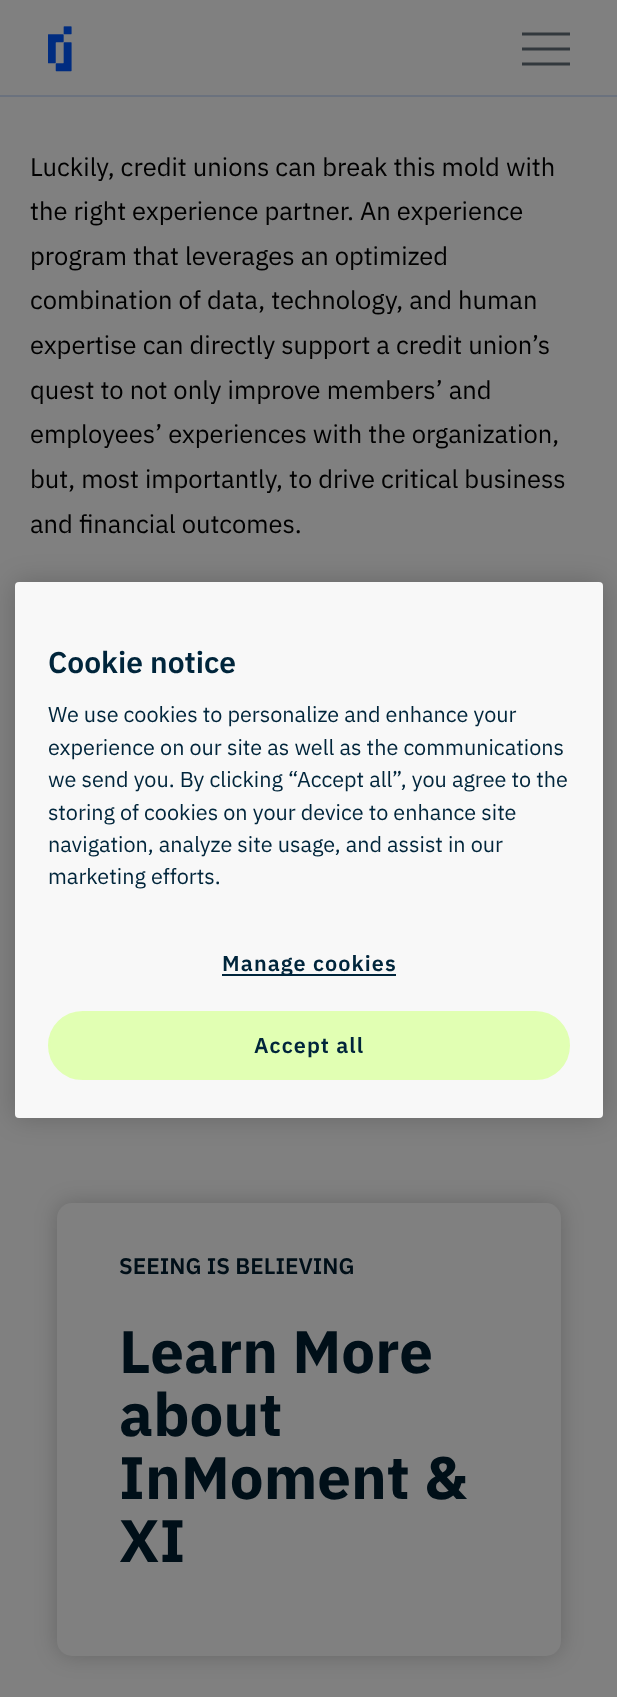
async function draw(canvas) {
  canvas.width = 617
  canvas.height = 1697
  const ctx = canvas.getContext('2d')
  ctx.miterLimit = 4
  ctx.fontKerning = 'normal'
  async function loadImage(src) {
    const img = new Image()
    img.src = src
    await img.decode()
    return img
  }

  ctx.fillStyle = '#808080'
  ctx.fillRect(0, 0, 617, 1697)
  ctx.drawImage(await loadImage('image0.png'), 48, 26, 24, 46)
  ctx.beginPath()
  ctx.moveTo(522, 34)
  ctx.lineTo(570, 34)
  ctx.moveTo(522, 49)
  ctx.lineTo(570, 49)
  ctx.moveTo(522, 64)
  ctx.lineTo(570, 64)
  ctx.strokeStyle = '#32383d'
  ctx.lineWidth = 3
  ctx.stroke()
  ctx.fillStyle = '#6b727e'
  ctx.fillRect(0, 95, 617, 2)
  ctx.font = '25.5px IBM Plex Sans'
  ctx.fillStyle = '#000'
  ctx.fillText('Luckily, credit unions can break this mold with', 30, 176)
  ctx.fillText('the right experience partner. An experience', 30, 220)
  ctx.fillText('program that leverages an optimized', 30, 265)
  ctx.fillText('combination of data, technology, and human', 30, 309)
  ctx.fillText('expertise can directly support a credit union’s', 30, 354)
  ctx.fillText('quest to not only improve members’ and', 30, 399)
  ctx.fillText('employees’ experiences with the organization,', 30, 443)
  ctx.fillText('but, most importantly, to drive critical business', 30, 488)
  ctx.fillText('and financial outcomes.', 30, 533)
  ctx.fillStyle = '#00000033'
  ctx.filter = 'blur(13.5px)'
  ctx.beginPath()
  ctx.roundRect(15, 582, 588, 536, 4)
  ctx.fill()
  ctx.filter = 'none'
  ctx.fillStyle = '#f8f8f8'
  ctx.beginPath()
  ctx.roundRect(15, 582, 588, 536, 4)
  ctx.fill()
  ctx.font = '600 30px IBM Plex Sans'
  ctx.fillStyle = '#00253b'
  ctx.fillText('Cookie notice', 48, 673)
  ctx.font = '21.6px IBM Plex Sans'
  ctx.fillText('We use cookies to personalize and enhance your', 48, 722)
  ctx.fillText('experience on our site as well as the communications', 48, 755)
  ctx.fillText('we send you. By clicking “Accept all”, you agree to the', 48, 787)
  ctx.fillText('storing of cookies on your device to enhance site', 48, 820)
  ctx.fillText('navigation, analyze site usage, and assist in our', 48, 852)
  ctx.fillText('marketing efforts.', 48, 884)
  ctx.fillRect(222, 974, 174, 2)
  ctx.letterSpacing = '1.1px'
  ctx.font = '600 21.6px IBM Plex Sans'
  ctx.fillText('Manage cookies', 222, 971)
  ctx.fillStyle = '#e1ffb3'
  ctx.beginPath()
  ctx.roundRect(49, 1012, 520, 67, 33.5)
  ctx.fill()
  ctx.strokeStyle = '#e1ffb3'
  ctx.lineWidth = 2
  ctx.stroke()
  ctx.fillStyle = '#00253b'
  ctx.fillText('Accept all', 254, 1053)
  ctx.fillStyle = '#00000033'
  ctx.filter = 'blur(11px)'
  ctx.beginPath()
  ctx.roundRect(57, 1203, 504, 453, 15)
  ctx.fill()
  ctx.filter = 'none'
  ctx.fillStyle = '#808080'
  ctx.beginPath()
  ctx.roundRect(57, 1203, 504, 453, 15)
  ctx.fill()
  ctx.letterSpacing = '0px'
  ctx.font = '600 22.5px IBM Plex Sans'
  ctx.fillStyle = '#000f18'
  ctx.fillText('SEEING IS BELIEVING', 119, 1274)
  ctx.font = 'bold 60px IBM Plex Sans'
  ctx.fillText('Learn More', 119, 1373)
  ctx.fillText('about', 119, 1436)
  ctx.fillText('InMoment &', 119, 1499)
  ctx.fillText('XI', 119, 1562)
}

draw(document.querySelector('canvas'))
